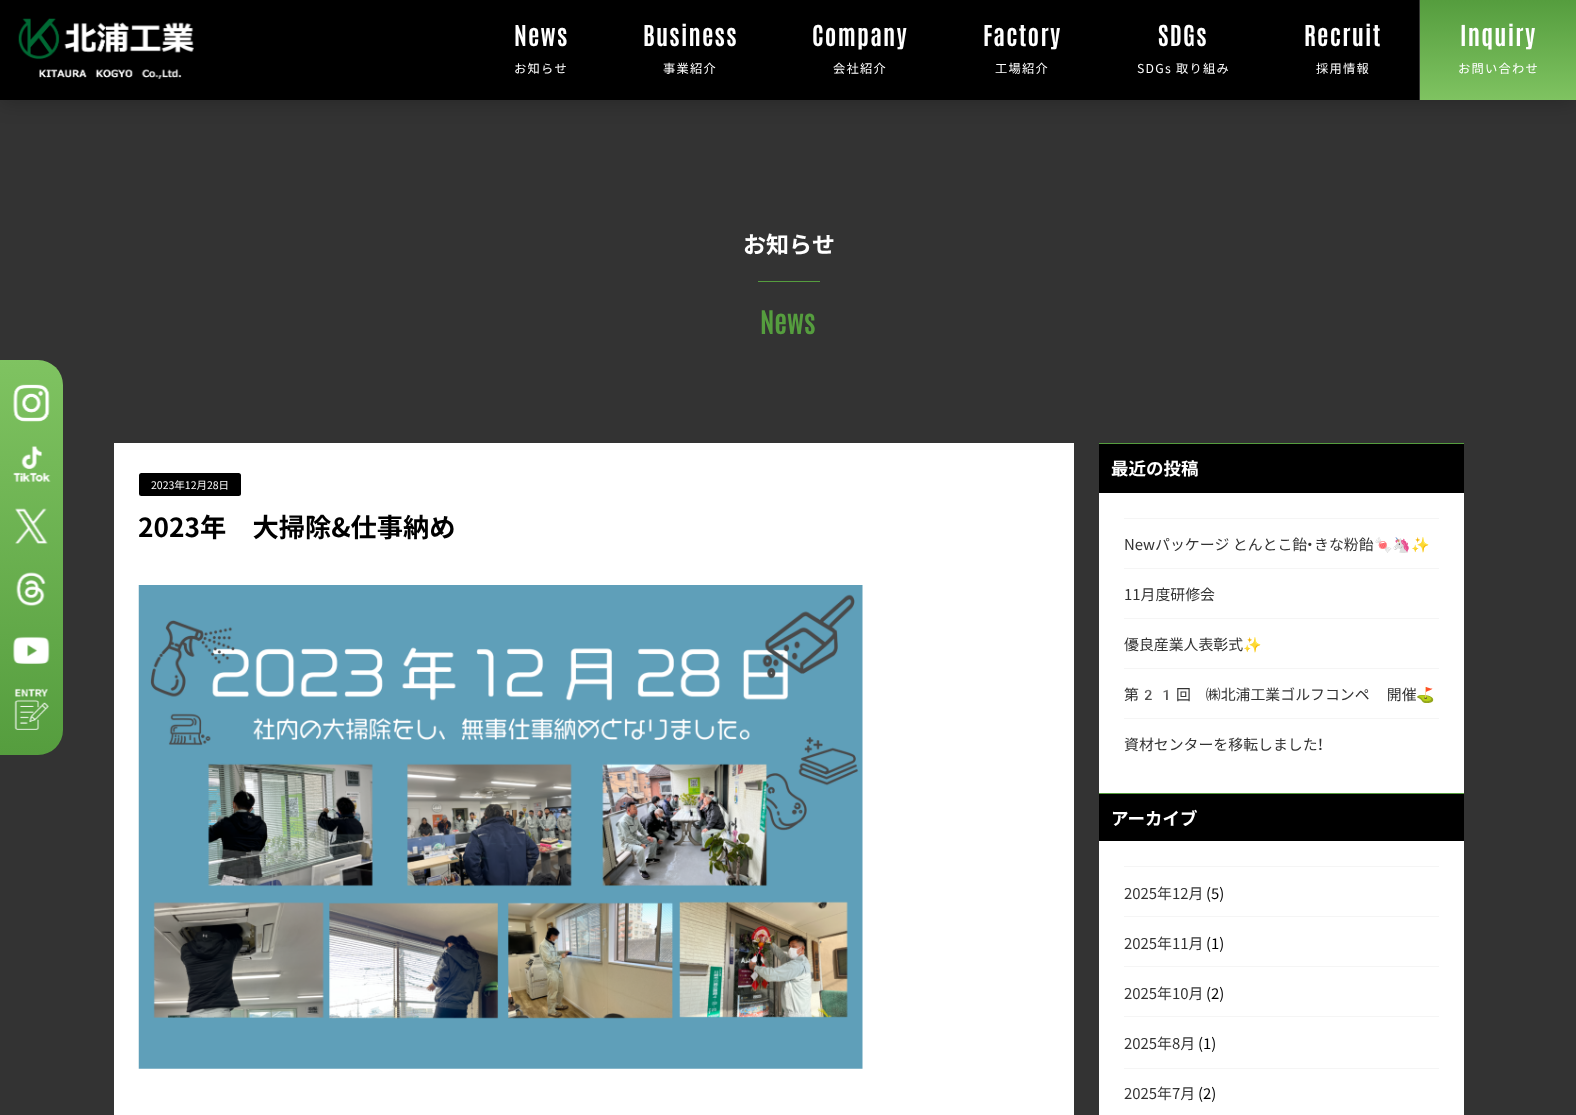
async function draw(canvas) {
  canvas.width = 1576
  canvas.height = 1115
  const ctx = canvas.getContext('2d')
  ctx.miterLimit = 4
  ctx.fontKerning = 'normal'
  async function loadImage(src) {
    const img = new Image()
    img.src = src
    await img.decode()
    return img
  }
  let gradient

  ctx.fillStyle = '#333'
  ctx.fillRect(0, 0, 1576, 1115)
  ctx.fillStyle = '#00000033'
  ctx.filter = 'blur(9.5px)'
  ctx.beginPath()
  ctx.rect(0, 4, 1576, 100)
  ctx.fill()
  ctx.filter = 'none'
  ctx.fillStyle = '#000'
  ctx.fillRect(0, 0, 1419, 100)
  ctx.drawImage(await loadImage('image0.png'), 18, 18, 176, 61)
  ctx.letterSpacing = '1.25px'
  ctx.font = 'bold 24.5px Antonio'
  ctx.fillStyle = '#fff'
  ctx.fillText('News', 514, 46)
  ctx.font = '12.25px Noto Sans JP'
  ctx.fillText('お知らせ', 514, 73)
  ctx.font = 'bold 24.5px Antonio'
  ctx.fillText('Business', 643, 46)
  ctx.font = '12.25px Noto Sans JP'
  ctx.fillText('事業紹介', 663, 73)
  ctx.font = 'bold 24.5px Antonio'
  ctx.fillText('Company', 812, 46)
  ctx.font = '12.25px Noto Sans JP'
  ctx.fillText('会社紹介', 833, 73)
  ctx.font = 'bold 24.5px Antonio'
  ctx.fillText('Factory', 983, 46)
  ctx.font = '12.25px Noto Sans JP'
  ctx.fillText('工場紹介', 995, 73)
  ctx.font = 'bold 24.5px Antonio'
  ctx.fillText('SDGs', 1158, 46)
  ctx.font = '12.25px Noto Sans JP'
  ctx.fillText('SDGs 取り組み', 1137, 73)
  ctx.font = 'bold 24.5px Antonio'
  ctx.fillText('Recruit', 1304, 46)
  ctx.font = '12.25px Noto Sans JP'
  ctx.fillText('採用情報', 1316, 73)
  gradient = ctx.createLinearGradient(1498, 0, 1498, 100)
  gradient.addColorStop(0, '#559d3e')
  gradient.addColorStop(1, '#7fc361')
  ctx.fillStyle = gradient
  ctx.fillRect(1420, 0, 156, 100)
  ctx.fillStyle = '#333'
  ctx.fillRect(1419, 0, 1, 100)
  ctx.font = 'bold 24.5px Antonio'
  ctx.fillStyle = '#fff'
  ctx.fillText('Inquiry', 1460, 46)
  ctx.font = '12.25px Noto Sans JP'
  ctx.fillText('お問い合わせ', 1458, 73)
  gradient = ctx.createLinearGradient(31, 755, 31, 360)
  gradient.addColorStop(0, '#559d3e')
  gradient.addColorStop(1, '#7fc361')
  ctx.fillStyle = gradient
  ctx.beginPath()
  ctx.roundRect(0, 360, 63, 395, [0, 25, 25, 0])
  ctx.fill()
  ctx.drawImage(await loadImage('image1.png'), 13, 384, 37, 38)
  ctx.drawImage(await loadImage('image2.png'), 13, 446, 38, 36)
  ctx.drawImage(await loadImage('image3.png'), 15, 508, 33, 36)
  ctx.drawImage(await loadImage('image4.png'), 16, 572, 30, 34)
  ctx.drawImage(await loadImage('image5.png'), 13, 636, 37, 28)
  ctx.drawImage(await loadImage('image6.png'), 14, 688, 35, 42)
  ctx.letterSpacing = '0px'
  ctx.font = 'bold 23px Noto Sans JP'
  ctx.fillStyle = '#fff'
  ctx.fillText('お知らせ', 743, 253)
  ctx.fillStyle = '#559d3e'
  ctx.fillRect(758, 281, 62, 1)
  ctx.font = 'bold 27.5px Antonio'
  ctx.fillText('News', 760, 334)
  ctx.fillStyle = '#fff'
  ctx.fillRect(114, 443, 960, 672)
  ctx.fillStyle = '#000'
  ctx.beginPath()
  ctx.roundRect(139, 473, 102, 23, 2.5)
  ctx.fill()
  ctx.font = '10.5px Noto Sans JP'
  ctx.fillStyle = '#fff'
  ctx.fillText('2023年12月28日', 151, 489)
  ctx.font = 'bold 26.25px Noto Sans JP'
  ctx.fillStyle = '#000'
  ctx.fillText('2023年　大掃除&仕事納め', 138, 537)
  ctx.drawImage(await loadImage('image7.png'), 138, 585, 725, 484)
  ctx.fillRect(1099, 444, 365, 49)
  ctx.fillStyle = '#559d3e'
  ctx.fillRect(1099, 443, 365, 1)
  ctx.font = 'bold 17.5px Noto Sans JP'
  ctx.fillStyle = '#fff'
  ctx.fillText('最近の投稿', 1111, 475)
  ctx.fillRect(1099, 493, 365, 300)
  ctx.fillStyle = '#f5f5f5'
  ctx.fillRect(1124, 518, 315, 1)
  ctx.font = '14.9px Noto Sans JP'
  ctx.fillStyle = '#333'
  ctx.fillText('Newパッケージ とんとこ飴', 1124, 550)
  ctx.font = '14.9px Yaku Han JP'
  ctx.fillText('・', 1306, 550)
  ctx.font = '14.9px Noto Sans JP'
  ctx.fillText('きな粉飴', 1314, 550)
  ctx.font = '14.9px Noto Color Emoji'
  ctx.fillText('🍬🦄✨', 1374, 550)
  ctx.fillStyle = '#f5f5f5'
  ctx.fillRect(1124, 568, 315, 1)
  ctx.font = '14.9px Noto Sans JP'
  ctx.fillStyle = '#333'
  ctx.fillText('11月度研修会', 1124, 600)
  ctx.fillStyle = '#f5f5f5'
  ctx.fillRect(1124, 618, 315, 1)
  ctx.fillStyle = '#333'
  ctx.fillText('優良産業人表彰式', 1124, 650)
  ctx.font = '14.9px Noto Color Emoji'
  ctx.fillText('✨', 1243, 650)
  ctx.fillStyle = '#f5f5f5'
  ctx.fillRect(1124, 668, 315, 1)
  ctx.font = '14.9px Noto Sans JP'
  ctx.fillStyle = '#333'
  ctx.fillText('第', 1124, 700)
  ctx.font = '14.9px Noto Color Emoji'
  ctx.fillText('21', 1139, 700)
  ctx.wordSpacing = '-1px'
  ctx.font = '14.9px Noto Sans JP'
  ctx.fillText('回　㈱北浦工業ゴルフコンペ 　開催', 1176, 700)
  ctx.wordSpacing = '0px'
  ctx.font = '14.9px Noto Color Emoji'
  ctx.fillText('⛳️', 1416, 700)
  ctx.fillStyle = '#f5f5f5'
  ctx.fillRect(1124, 718, 315, 1)
  ctx.font = '14.9px Noto Sans JP'
  ctx.fillStyle = '#333'
  ctx.fillText('資材センターを移転しました', 1124, 750)
  ctx.font = '14.9px Yaku Han JP'
  ctx.fillText('！', 1317, 750)
  ctx.fillStyle = '#000'
  ctx.fillRect(1099, 794, 365, 47)
  ctx.fillStyle = '#559d3e'
  ctx.fillRect(1099, 793, 365, 1)
  ctx.font = 'bold 17.5px Noto Sans JP'
  ctx.fillStyle = '#fff'
  ctx.fillText('アーカイブ', 1111, 825)
  ctx.fillRect(1099, 841, 365, 274)
  ctx.fillStyle = '#f5f5f5'
  ctx.fillRect(1124, 866, 315, 1)
  ctx.font = '14.9px Noto Sans JP'
  ctx.fillStyle = '#333'
  ctx.fillText('2025年12月', 1124, 899)
  ctx.fillStyle = '#000'
  ctx.fillText('(5)', 1206, 899)
  ctx.fillStyle = '#f5f5f5'
  ctx.fillRect(1124, 916, 315, 1)
  ctx.fillStyle = '#333'
  ctx.fillText('2025年11月', 1124, 949)
  ctx.fillStyle = '#000'
  ctx.fillText('(1)', 1206, 949)
  ctx.fillStyle = '#f5f5f5'
  ctx.fillRect(1124, 966, 315, 1)
  ctx.fillStyle = '#333'
  ctx.fillText('2025年10月', 1124, 999)
  ctx.fillStyle = '#000'
  ctx.fillText('(2)', 1206, 999)
  ctx.fillStyle = '#f5f5f5'
  ctx.fillRect(1124, 1016, 315, 1)
  ctx.fillStyle = '#333'
  ctx.fillText('2025年8月', 1124, 1049)
  ctx.fillStyle = '#000'
  ctx.fillText('(1)', 1198, 1049)
  ctx.fillStyle = '#f5f5f5'
  ctx.fillRect(1124, 1068, 315, 1)
  ctx.fillStyle = '#333'
  ctx.fillText('2025年7月', 1124, 1099)
  ctx.fillStyle = '#000'
  ctx.fillText('(2)', 1198, 1099)
}

draw(document.querySelector('canvas'))
